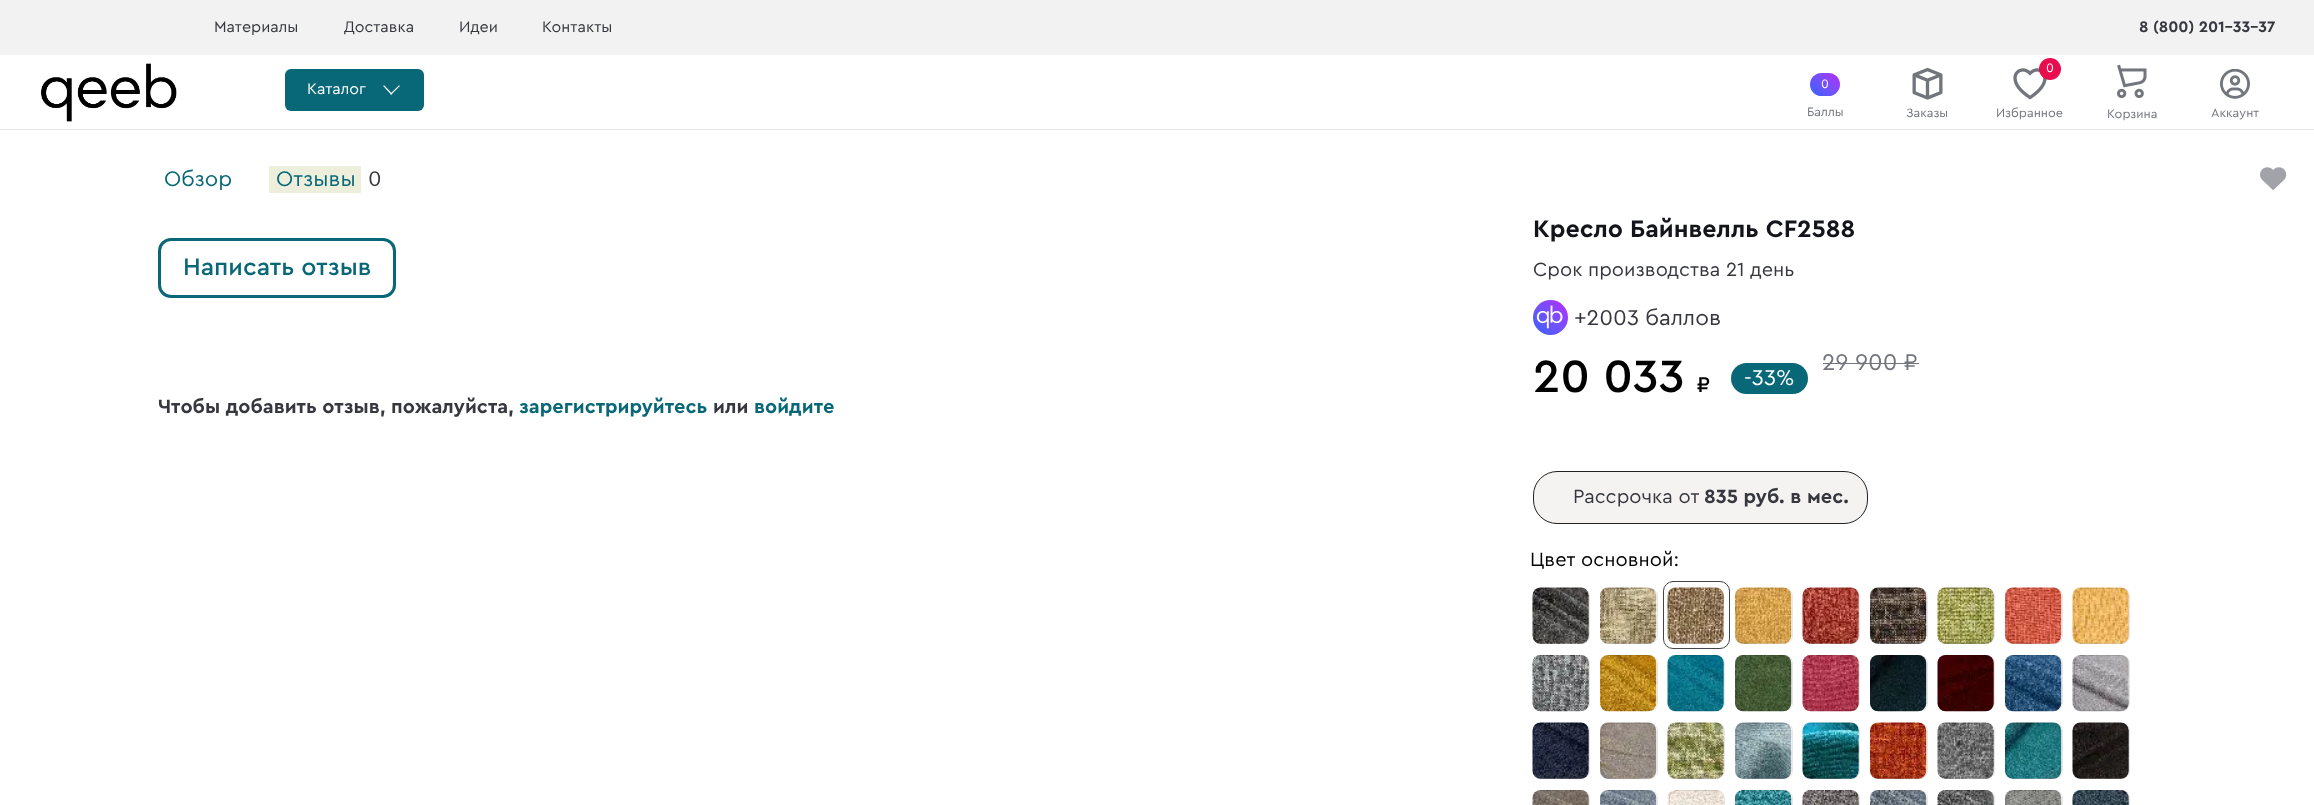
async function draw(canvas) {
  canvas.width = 2314
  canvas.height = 805
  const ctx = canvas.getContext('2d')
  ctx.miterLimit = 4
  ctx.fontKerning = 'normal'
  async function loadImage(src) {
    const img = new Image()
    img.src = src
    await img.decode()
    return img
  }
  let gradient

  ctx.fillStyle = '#fff'
  ctx.fillRect(0, 0, 2314, 805)
  ctx.fillStyle = '#f2f2f3'
  ctx.fillRect(0, 0, 2314, 55)
  ctx.font = '16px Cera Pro'
  ctx.fillStyle = '#37383f'
  ctx.fillText('Материалы', 214, 32)
  ctx.fillText('Доставка', 344, 32)
  ctx.fillText('Идеи', 459, 32)
  ctx.fillText('Контакты', 542, 32)
  ctx.font = 'bold 16px Cera Pro'
  ctx.fillText('8 (800) 201-33-37', 2139, 32)
  ctx.fillStyle = '#e8e8e8'
  ctx.fillRect(0, 129, 2314, 1)
  ctx.drawImage(await loadImage('image0.png'), 41, 63, 136, 59)
  ctx.fillStyle = '#096877'
  ctx.beginPath()
  ctx.roundRect(285, 69, 139, 42, 6)
  ctx.fill()
  ctx.font = '16px Cera Pro'
  ctx.fillStyle = '#fff'
  ctx.fillText('Каталог', 307, 94)
  ctx.beginPath()
  ctx.moveTo(384, 86)
  ctx.lineTo(391.5, 94)
  ctx.moveTo(399, 86)
  ctx.lineTo(391, 94)
  ctx.strokeStyle = '#fff'
  ctx.lineWidth = 1.2
  ctx.lineCap = 'square'
  ctx.stroke()
  gradient = ctx.createLinearGradient(1812, 98, 1838, 71)
  gradient.addColorStop(0, '#3661fe')
  gradient.addColorStop(0.5, '#7451fc')
  gradient.addColorStop(1, '#b82bfe')
  ctx.fillStyle = gradient
  ctx.beginPath()
  ctx.roundRect(1810, 73, 30, 23, 11.5)
  ctx.fill()
  ctx.font = '12.75px Cera Pro'
  ctx.fillStyle = '#fff'
  ctx.fillText('0', 1821, 88)
  ctx.fillStyle = '#73757d'
  ctx.fillText('Баллы', 1807, 116)
  ctx.drawImage(await loadImage('image1.png'), 1912, 67, 31, 33)
  ctx.fillText('Заказы', 1906, 117)
  ctx.drawImage(await loadImage('image2.png'), 2013, 68, 34, 32)
  ctx.fillStyle = '#e70d4f'
  ctx.beginPath()
  ctx.arc(2050, 69, 11, 0, 2 * Math.PI)
  ctx.fill()
  ctx.fillStyle = '#fff'
  ctx.fillText('0', 2046, 72)
  ctx.fillStyle = '#73757d'
  ctx.fillText('Избранное', 1996, 117)
  ctx.drawImage(await loadImage('image3.png'), 2117, 64, 30, 35)
  ctx.fillText('Корзина', 2107, 118)
  ctx.drawImage(await loadImage('image4.png'), 2220, 69, 30, 30)
  ctx.fillText('Аккаунт', 2211, 117)
  ctx.font = '22px Cera Pro'
  ctx.fillStyle = '#096877'
  ctx.fillText('Обзор', 164, 186)
  ctx.fillStyle = '#eed'
  ctx.fillRect(269, 166, 92, 27)
  ctx.fillStyle = '#096877'
  ctx.fillText('Отзывы', 276, 186)
  ctx.fillStyle = '#37383f'
  ctx.fillText('0', 368, 186)
  ctx.beginPath()
  ctx.roundRect(159.5, 239.5, 235, 57, 11.5)
  ctx.strokeStyle = '#096877'
  ctx.lineWidth = 3
  ctx.stroke()
  ctx.font = '500 25px Cera Pro'
  ctx.fillStyle = '#096877'
  ctx.fillText('Написать отзыв', 183, 275)
  ctx.font = 'bold 20px Cera Pro'
  ctx.fillStyle = '#37383f'
  ctx.fillText('Чтобы добавить отзыв, пожалуйста,', 158, 413)
  ctx.fillStyle = '#096877'
  ctx.fillText('зарегистрируйтесь', 519, 413)
  ctx.fillStyle = '#37383f'
  ctx.fillText('или', 713, 413)
  ctx.fillStyle = '#096877'
  ctx.fillText('войдите', 754, 413)
  ctx.drawImage(await loadImage('image5.png'), 2260, 167, 27, 24)
  ctx.font = 'bold 25px Cera Pro'
  ctx.fillStyle = '#14151a'
  ctx.fillText('Кресло Байнвелль CF2588', 1533, 237)
  ctx.font = '20px Cera Pro'
  ctx.fillStyle = '#37383f'
  ctx.fillText('Срок производства 21 день', 1533, 276)
  gradient = ctx.createLinearGradient(1533, 335, 1568, 300)
  gradient.addColorStop(0, '#3661fe')
  gradient.addColorStop(0.5, '#7451fc')
  gradient.addColorStop(1, '#b82bfe')
  ctx.fillStyle = gradient
  ctx.beginPath()
  ctx.arc(1550.5, 317.5, 17.5, 0, 2 * Math.PI)
  ctx.fill()
  ctx.drawImage(await loadImage('image6.png'), 1536, 305, 27, 24)
  ctx.font = '22.5px Cera Pro'
  ctx.fillStyle = '#37383f'
  ctx.fillText('+2003 баллов', 1574, 325)
  ctx.font = '500 47.5px Cera Pro'
  ctx.fillStyle = '#000'
  ctx.fillText('20 033', 1533, 392)
  ctx.font = '500 22.5px Cera Pro'
  ctx.fillText('₽', 1697, 392)
  ctx.fillStyle = '#096877'
  ctx.beginPath()
  ctx.roundRect(1731, 363, 77, 31, 15.5)
  ctx.fill()
  ctx.font = '22.5px Cera Pro'
  ctx.fillStyle = '#fff'
  ctx.fillText('-33%', 1744, 385)
  ctx.font = '23.75px Cera Pro'
  ctx.fillStyle = '#73757d'
  ctx.fillText('29 900 ₽', 1822, 370)
  ctx.fillRect(1823, 363, 96, 1)
  ctx.fillStyle = '#f5f3f1'
  ctx.beginPath()
  ctx.roundRect(1533.5, 471.5, 334, 52, 23.5)
  ctx.fill()
  ctx.strokeStyle = '#222'
  ctx.lineWidth = 1
  ctx.stroke()
  ctx.font = '20px Cera Pro'
  ctx.fillStyle = '#37383f'
  ctx.fillText('Рассрочка от', 1573, 503)
  ctx.font = 'bold 20px Cera Pro'
  ctx.fillText('835 руб. в мес.', 1704, 503)
  ctx.font = '20px Cera Pro'
  ctx.fillStyle = '#000'
  ctx.fillText('Цвет основной:', 1530, 566)
  ctx.drawImage(await loadImage('image7.png'), 1532, 587, 57, 57)
  ctx.beginPath()
  ctx.roundRect(1534.5, 588.5, 55, 55, 7.5)
  ctx.strokeStyle = '#14151a1a'
  ctx.stroke()
  ctx.drawImage(await loadImage('image8.png'), 1600, 587, 57, 57)
  ctx.beginPath()
  ctx.roundRect(1601.5, 588.5, 56, 55, 7.5)
  ctx.stroke()
  ctx.drawImage(await loadImage('image9.png'), 1667, 587, 57, 57)
  ctx.beginPath()
  ctx.roundRect(1663.5, 581.5, 66, 67, 9.5)
  ctx.strokeStyle = '#434448'
  ctx.stroke()
  ctx.drawImage(await loadImage('image10.png'), 1734, 587, 58, 57)
  ctx.beginPath()
  ctx.roundRect(1736.5, 588.5, 56, 55, 7.5)
  ctx.strokeStyle = '#14151a1a'
  ctx.stroke()
  ctx.drawImage(await loadImage('image11.png'), 1802, 587, 57, 57)
  ctx.beginPath()
  ctx.roundRect(1804.5, 588.5, 55, 55, 7.5)
  ctx.stroke()
  ctx.drawImage(await loadImage('image12.png'), 1869, 587, 58, 57)
  ctx.beginPath()
  ctx.roundRect(1871.5, 588.5, 56, 55, 7.5)
  ctx.stroke()
  ctx.drawImage(await loadImage('image13.png'), 1937, 587, 57, 57)
  ctx.beginPath()
  ctx.roundRect(1939.5, 588.5, 55, 55, 7.5)
  ctx.stroke()
  ctx.drawImage(await loadImage('image14.png'), 2004, 587, 58, 57)
  ctx.beginPath()
  ctx.roundRect(2006.5, 588.5, 56, 55, 7.5)
  ctx.stroke()
  ctx.drawImage(await loadImage('image15.png'), 2072, 587, 57, 57)
  ctx.beginPath()
  ctx.roundRect(2074.5, 588.5, 55, 55, 7.5)
  ctx.stroke()
  ctx.drawImage(await loadImage('image16.png'), 1532, 655, 57, 57)
  ctx.beginPath()
  ctx.roundRect(1534.5, 655.5, 55, 55, 7.5)
  ctx.stroke()
  ctx.drawImage(await loadImage('image17.png'), 1600, 655, 57, 57)
  ctx.beginPath()
  ctx.roundRect(1601.5, 655.5, 56, 55, 7.5)
  ctx.stroke()
  ctx.drawImage(await loadImage('image18.png'), 1667, 655, 57, 57)
  ctx.beginPath()
  ctx.roundRect(1669.5, 655.5, 55, 55, 7.5)
  ctx.stroke()
  ctx.drawImage(await loadImage('image19.png'), 1735, 655, 57, 57)
  ctx.beginPath()
  ctx.roundRect(1736.5, 655.5, 56, 55, 7.5)
  ctx.stroke()
  ctx.drawImage(await loadImage('image20.png'), 1802, 655, 57, 57)
  ctx.beginPath()
  ctx.roundRect(1804.5, 655.5, 55, 55, 7.5)
  ctx.stroke()
  ctx.drawImage(await loadImage('image21.png'), 1870, 655, 57, 57)
  ctx.beginPath()
  ctx.roundRect(1871.5, 655.5, 56, 55, 7.5)
  ctx.stroke()
  ctx.drawImage(await loadImage('image22.png'), 1937, 655, 57, 57)
  ctx.beginPath()
  ctx.roundRect(1939.5, 655.5, 55, 55, 7.5)
  ctx.stroke()
  ctx.drawImage(await loadImage('image23.png'), 2005, 655, 57, 57)
  ctx.beginPath()
  ctx.roundRect(2006.5, 655.5, 56, 55, 7.5)
  ctx.stroke()
  ctx.drawImage(await loadImage('image24.png'), 2072, 655, 57, 57)
  ctx.beginPath()
  ctx.roundRect(2074.5, 655.5, 55, 55, 7.5)
  ctx.stroke()
  ctx.drawImage(await loadImage('image25.png'), 1532, 722, 57, 57)
  ctx.beginPath()
  ctx.roundRect(1534.5, 723.5, 55, 55, 7.5)
  ctx.stroke()
  ctx.drawImage(await loadImage('image26.png'), 1600, 722, 57, 57)
  ctx.beginPath()
  ctx.roundRect(1601.5, 723.5, 56, 55, 7.5)
  ctx.stroke()
  ctx.drawImage(await loadImage('image27.png'), 1667, 722, 57, 57)
  ctx.beginPath()
  ctx.roundRect(1669.5, 723.5, 55, 55, 7.5)
  ctx.stroke()
  ctx.drawImage(await loadImage('image28.png'), 1735, 722, 57, 57)
  ctx.beginPath()
  ctx.roundRect(1736.5, 723.5, 56, 55, 7.5)
  ctx.stroke()
  ctx.drawImage(await loadImage('image29.png'), 1802, 722, 57, 57)
  ctx.beginPath()
  ctx.roundRect(1804.5, 723.5, 55, 55, 7.5)
  ctx.stroke()
  ctx.drawImage(await loadImage('image30.png'), 1869, 722, 58, 57)
  ctx.beginPath()
  ctx.roundRect(1871.5, 723.5, 56, 55, 7.5)
  ctx.stroke()
  ctx.drawImage(await loadImage('image31.png'), 1937, 722, 57, 57)
  ctx.beginPath()
  ctx.roundRect(1939.5, 723.5, 55, 55, 7.5)
  ctx.stroke()
  ctx.drawImage(await loadImage('image32.png'), 2004, 722, 58, 57)
  ctx.beginPath()
  ctx.roundRect(2006.5, 723.5, 56, 55, 7.5)
  ctx.stroke()
  ctx.drawImage(await loadImage('image33.png'), 2072, 722, 57, 57)
  ctx.beginPath()
  ctx.roundRect(2074.5, 723.5, 55, 55, 7.5)
  ctx.stroke()
  ctx.drawImage(await loadImage('image34.png'), 1532, 790, 57, 15)
  ctx.beginPath()
  ctx.roundRect(1534.5, 790.5, 55, 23, 7.5)
  ctx.stroke()
  ctx.drawImage(await loadImage('image35.png'), 1600, 790, 57, 15)
  ctx.beginPath()
  ctx.roundRect(1601.5, 790.5, 56, 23, 7.5)
  ctx.stroke()
  ctx.drawImage(await loadImage('image36.png'), 1667, 790, 57, 15)
  ctx.beginPath()
  ctx.roundRect(1669.5, 790.5, 55, 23, 7.5)
  ctx.stroke()
  ctx.drawImage(await loadImage('image37.png'), 1735, 790, 57, 15)
  ctx.beginPath()
  ctx.roundRect(1736.5, 790.5, 56, 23, 7.5)
  ctx.stroke()
  ctx.drawImage(await loadImage('image38.png'), 1802, 790, 57, 15)
  ctx.beginPath()
  ctx.roundRect(1804.5, 790.5, 55, 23, 7.5)
  ctx.stroke()
  ctx.drawImage(await loadImage('image39.png'), 1870, 790, 57, 15)
  ctx.beginPath()
  ctx.roundRect(1871.5, 790.5, 56, 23, 7.5)
  ctx.stroke()
  ctx.drawImage(await loadImage('image40.png'), 1937, 790, 57, 15)
  ctx.beginPath()
  ctx.roundRect(1939.5, 790.5, 55, 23, 7.5)
  ctx.stroke()
  ctx.drawImage(await loadImage('image41.png'), 2005, 790, 57, 15)
  ctx.beginPath()
  ctx.roundRect(2006.5, 790.5, 56, 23, 7.5)
  ctx.stroke()
  ctx.drawImage(await loadImage('image42.png'), 2072, 790, 57, 15)
  ctx.beginPath()
  ctx.roundRect(2074.5, 790.5, 55, 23, 7.5)
  ctx.stroke()
}

draw(document.querySelector('canvas'))
